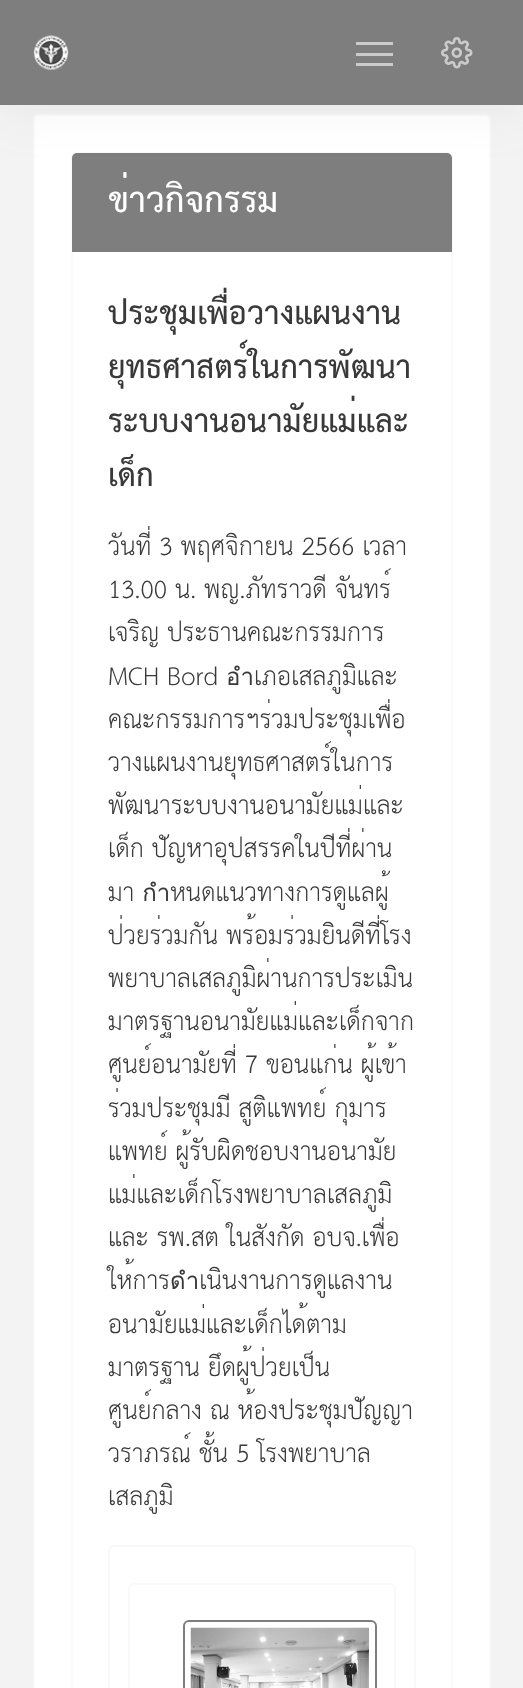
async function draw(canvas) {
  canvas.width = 523
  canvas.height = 1688
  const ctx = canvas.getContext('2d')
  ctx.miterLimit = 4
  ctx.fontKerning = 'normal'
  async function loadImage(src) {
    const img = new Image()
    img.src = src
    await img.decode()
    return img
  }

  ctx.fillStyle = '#f3f3f3'
  ctx.fillRect(0, 0, 523, 1688)
  ctx.fillStyle = '#fff'
  ctx.beginPath()
  ctx.roundRect(34, 115, 456, 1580, 5)
  ctx.fill()
  ctx.strokeStyle = '#f9f9f9'
  ctx.lineWidth = 2
  ctx.stroke()
  ctx.beginPath()
  ctx.roundRect(72, 153, 380, 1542, 5)
  ctx.stroke()
  ctx.fillStyle = '#7e7e7e'
  ctx.beginPath()
  ctx.roundRect(72, 153, 380, 99, [5, 5, 0, 0])
  ctx.fill()
  ctx.fillStyle = '#a0a0a026'
  ctx.filter = 'blur(26px)'
  ctx.beginPath()
  ctx.rect(0, 0, 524, 105)
  ctx.fill()
  ctx.filter = 'none'
  ctx.fillStyle = '#7e7e7e'
  ctx.fillRect(0, 0, 523, 105)
  ctx.drawImage(await loadImage('image0.png'), 33, 35, 36, 36)
  ctx.fillStyle = '#cbcbcb'
  ctx.fillRect(356, 42, 37, 3)
  ctx.fillRect(356, 53, 37, 3)
  ctx.fillRect(356, 63, 37, 3)
  ctx.drawImage(await loadImage('image1.png'), 441, 37, 32, 32)
  ctx.font = 'bold 33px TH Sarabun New'
  ctx.fillStyle = '#fff'
  ctx.fillText('ข่าวกิจกรรม', 108, 212)
  ctx.font = 'bold 30px TH Sarabun New'
  ctx.fillStyle = '#393939'
  ctx.fillText('ประชุมเพื่อวางแผนงาน', 108, 324)
  ctx.fillText('ยุทธศาสตร์ในการพัฒนา', 108, 378)
  ctx.fillText('ระบบงานอนามัยแม่และ', 108, 432)
  ctx.fillText('เด็ก', 108, 486)
  ctx.font = '24px TH Sarabun New'
  ctx.fillText('วันที่ 3 พฤศจิกายน 2566 เวลา', 108, 555)
  ctx.fillText('13.00 น. พญ.ภัทราวดี จันทร์', 108, 598)
  ctx.fillText('เจริญ ประธานคณะกรรมการ', 108, 641)
  ctx.fillText('MCH Bord อำเภอเสลภูมิและ', 108, 685)
  ctx.fillText('คณะกรรมการฯร่วมประชุมเพื่อ', 108, 728)
  ctx.fillText('วางแผนงานยุทธศาสตร์ในการ', 108, 771)
  ctx.fillText('พัฒนาระบบงานอนามัยแม่และ', 108, 814)
  ctx.fillText('เด็ก ปัญหาอุปสรรคในปีที่ผ่าน', 108, 857)
  ctx.fillText('มา กำหนดแนวทางการดูแลผู้', 108, 901)
  ctx.fillText('ป่วยร่วมกัน พร้อมร่วมยินดีที่โรง', 108, 944)
  ctx.fillText('พยาบาลเสลภูมิผ่านการประเมิน', 108, 987)
  ctx.fillText('มาตรฐานอนามัยแม่และเด็กจาก', 108, 1030)
  ctx.fillText('ศูนย์อนามัยที่ 7 ขอนแก่น ผู้เข้า', 108, 1073)
  ctx.fillText('ร่วมประชุมมี สูติแพทย์ กุมาร', 108, 1117)
  ctx.fillText('แพทย์ ผู้รับผิดชอบงานอนามัย', 108, 1160)
  ctx.fillText('แม่และเด็กโรงพยาบาลเสลภูมิ', 108, 1203)
  ctx.fillText('และ รพ.สต ในสังกัด อบจ.เพื่อ', 108, 1246)
  ctx.fillText('ให้การดำเนินงานการดูแลงาน', 108, 1289)
  ctx.fillText('อนามัยแม่และเด็กได้ตาม', 108, 1333)
  ctx.fillText('มาตรฐาน ยึดผู้ป่วยเป็น', 108, 1376)
  ctx.fillText('ศูนย์กลาง ณ ห้องประชุมปัญญา', 108, 1419)
  ctx.fillText('วราภรณ์ ชั้น 5 โรงพยาบาล', 108, 1462)
  ctx.fillText('เสลภูมิ', 108, 1505)
  ctx.beginPath()
  ctx.roundRect(109, 1546, 306, 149, 5)
  ctx.stroke()
  ctx.beginPath()
  ctx.roundRect(129, 1584, 266, 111, 5)
  ctx.stroke()
  ctx.beginPath()
  ctx.roundRect(184, 1621, 192, 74, 5)
  ctx.strokeStyle = '#7e7e7e'
  ctx.stroke()
  ctx.drawImage(await loadImage('image2.png'), 190, 1627, 179, 61)
}

draw(document.querySelector('canvas'))
